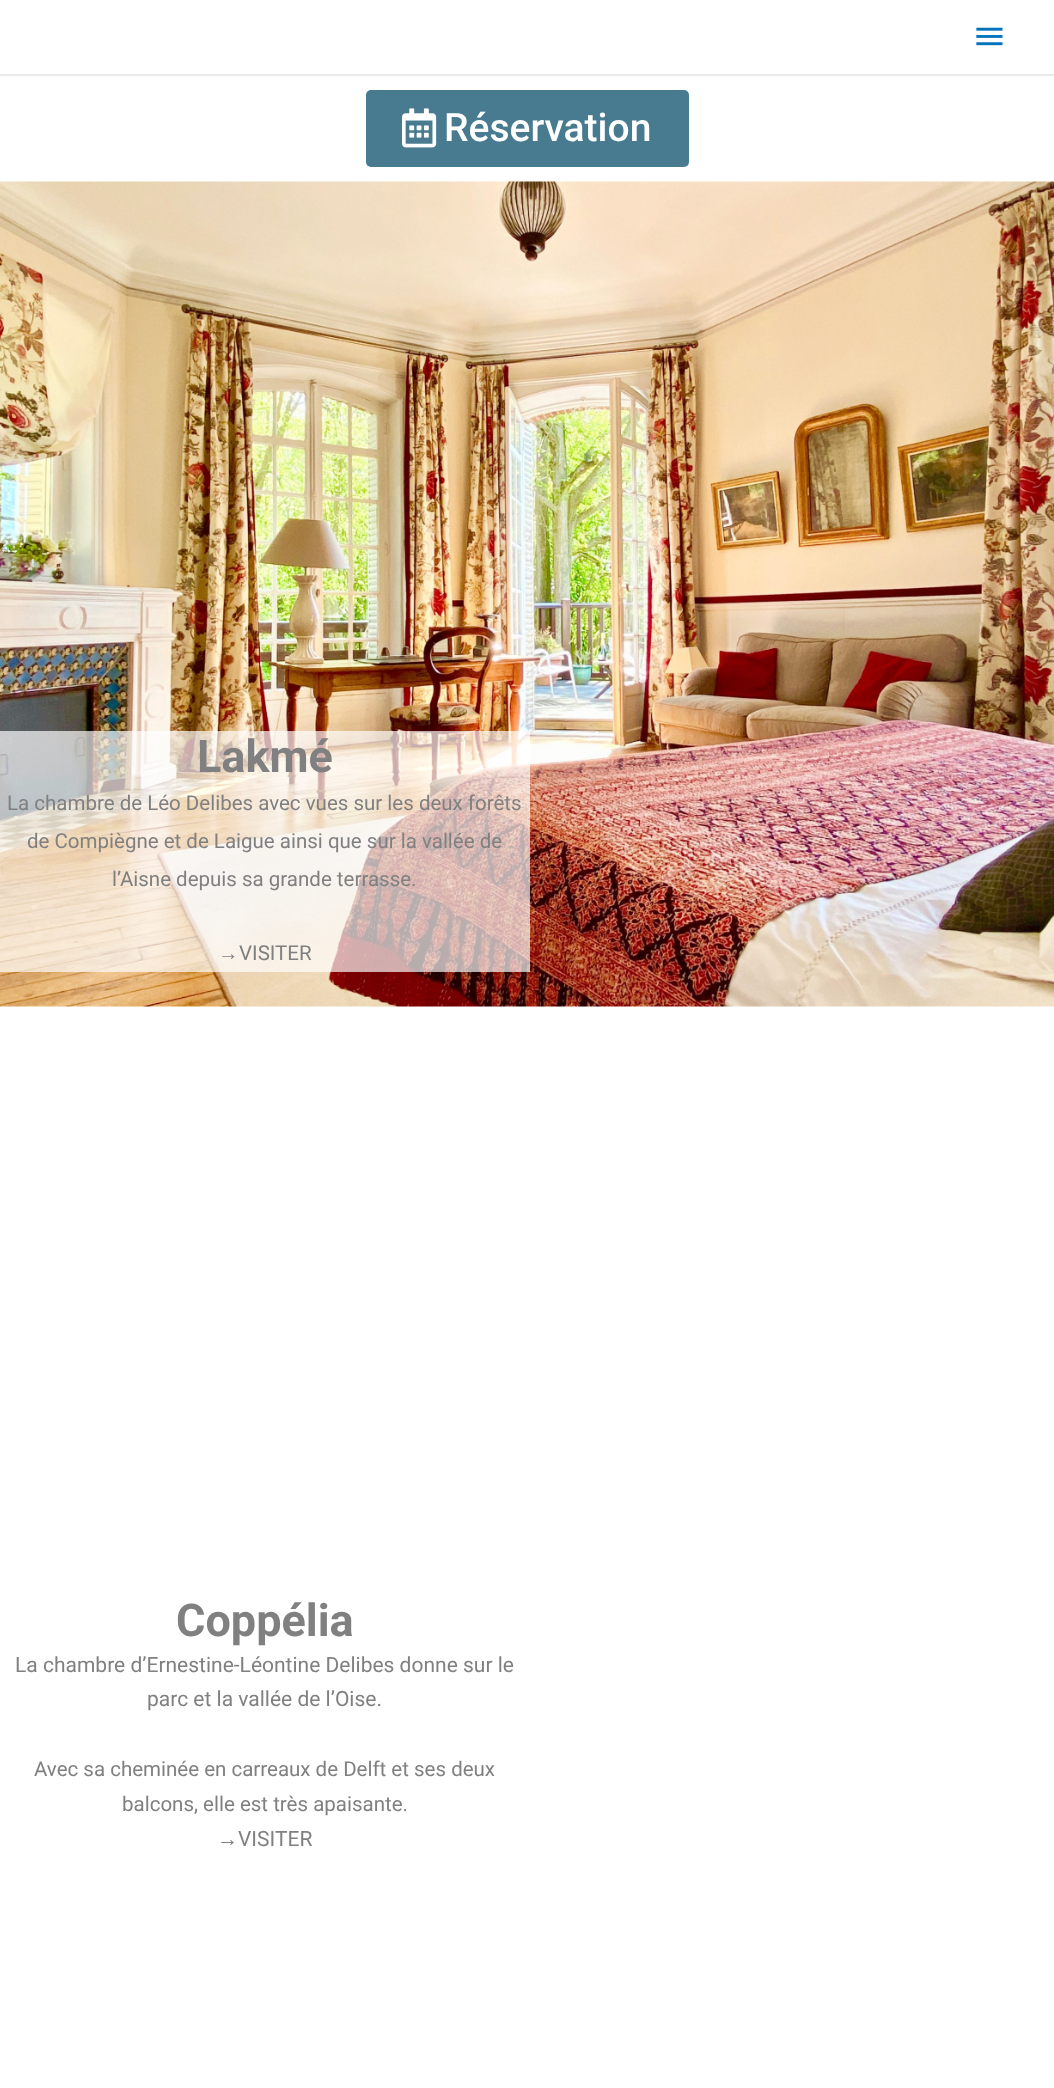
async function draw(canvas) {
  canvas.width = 1054
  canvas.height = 2088
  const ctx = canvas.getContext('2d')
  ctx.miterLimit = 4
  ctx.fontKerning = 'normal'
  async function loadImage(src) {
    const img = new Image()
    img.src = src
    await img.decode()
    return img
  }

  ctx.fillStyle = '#fff'
  ctx.fillRect(0, 0, 1054, 2088)
  ctx.fillStyle = '#eaeaea'
  ctx.fillRect(0, 74, 1054, 2)
  ctx.drawImage(await loadImage('image0.png'), 976, 27, 27, 19)
  ctx.fillStyle = '#487b90'
  ctx.beginPath()
  ctx.roundRect(366, 90, 323, 77, 5)
  ctx.fill()
  ctx.drawImage(await loadImage('image1.png'), 402, 108, 35, 40)
  ctx.font = '500 39px Roboto'
  ctx.fillStyle = '#fff'
  ctx.fillText('Réservation', 444, 141)
  ctx.drawImage(await loadImage('image2.png'), 0, 181, 1054, 826)
  ctx.fillStyle = '#ffffffad'
  ctx.fillRect(0, 731, 530, 241)
  ctx.font = 'bold 45px Roboto'
  ctx.fillStyle = '#808080'
  ctx.fillText('Lakmé', 197, 772)
  ctx.font = '20.5px Roboto'
  ctx.fillText('La chambre de Léo Delibes avec vues sur les deux forêts', 7, 810)
  ctx.fillText('de Compiègne et de Laigue ainsi que sur la vallée de', 27, 848)
  ctx.fillText('l’Aisne depuis sa grande terrasse.', 112, 886)
  ctx.font = '20.5px Liberation Sans'
  ctx.fillText('→', 218, 960)
  ctx.font = '20.5px Roboto'
  ctx.fillText('VISITER', 239, 960)
  ctx.font = 'bold 45px Roboto'
  ctx.fillText('Coppélia', 176, 1636)
  ctx.font = '21px Roboto'
  ctx.fillText('La chambre d’Ernestine-Léontine Delibes donne sur le', 15, 1672)
  ctx.fillText('parc et la vallée de l’Oise.', 147, 1706)
  ctx.font = '20.5px Roboto'
  ctx.fillText('Avec sa cheminée en carreaux de Delft et ses deux', 34, 1776)
  ctx.fillText('balcons, elle est très apaisante.', 122, 1811)
  ctx.font = '21px Liberation Sans'
  ctx.fillText('→', 217, 1846)
  ctx.font = '21px Roboto'
  ctx.fillText('VISITER', 238, 1846)
}

draw(document.querySelector('canvas'))
